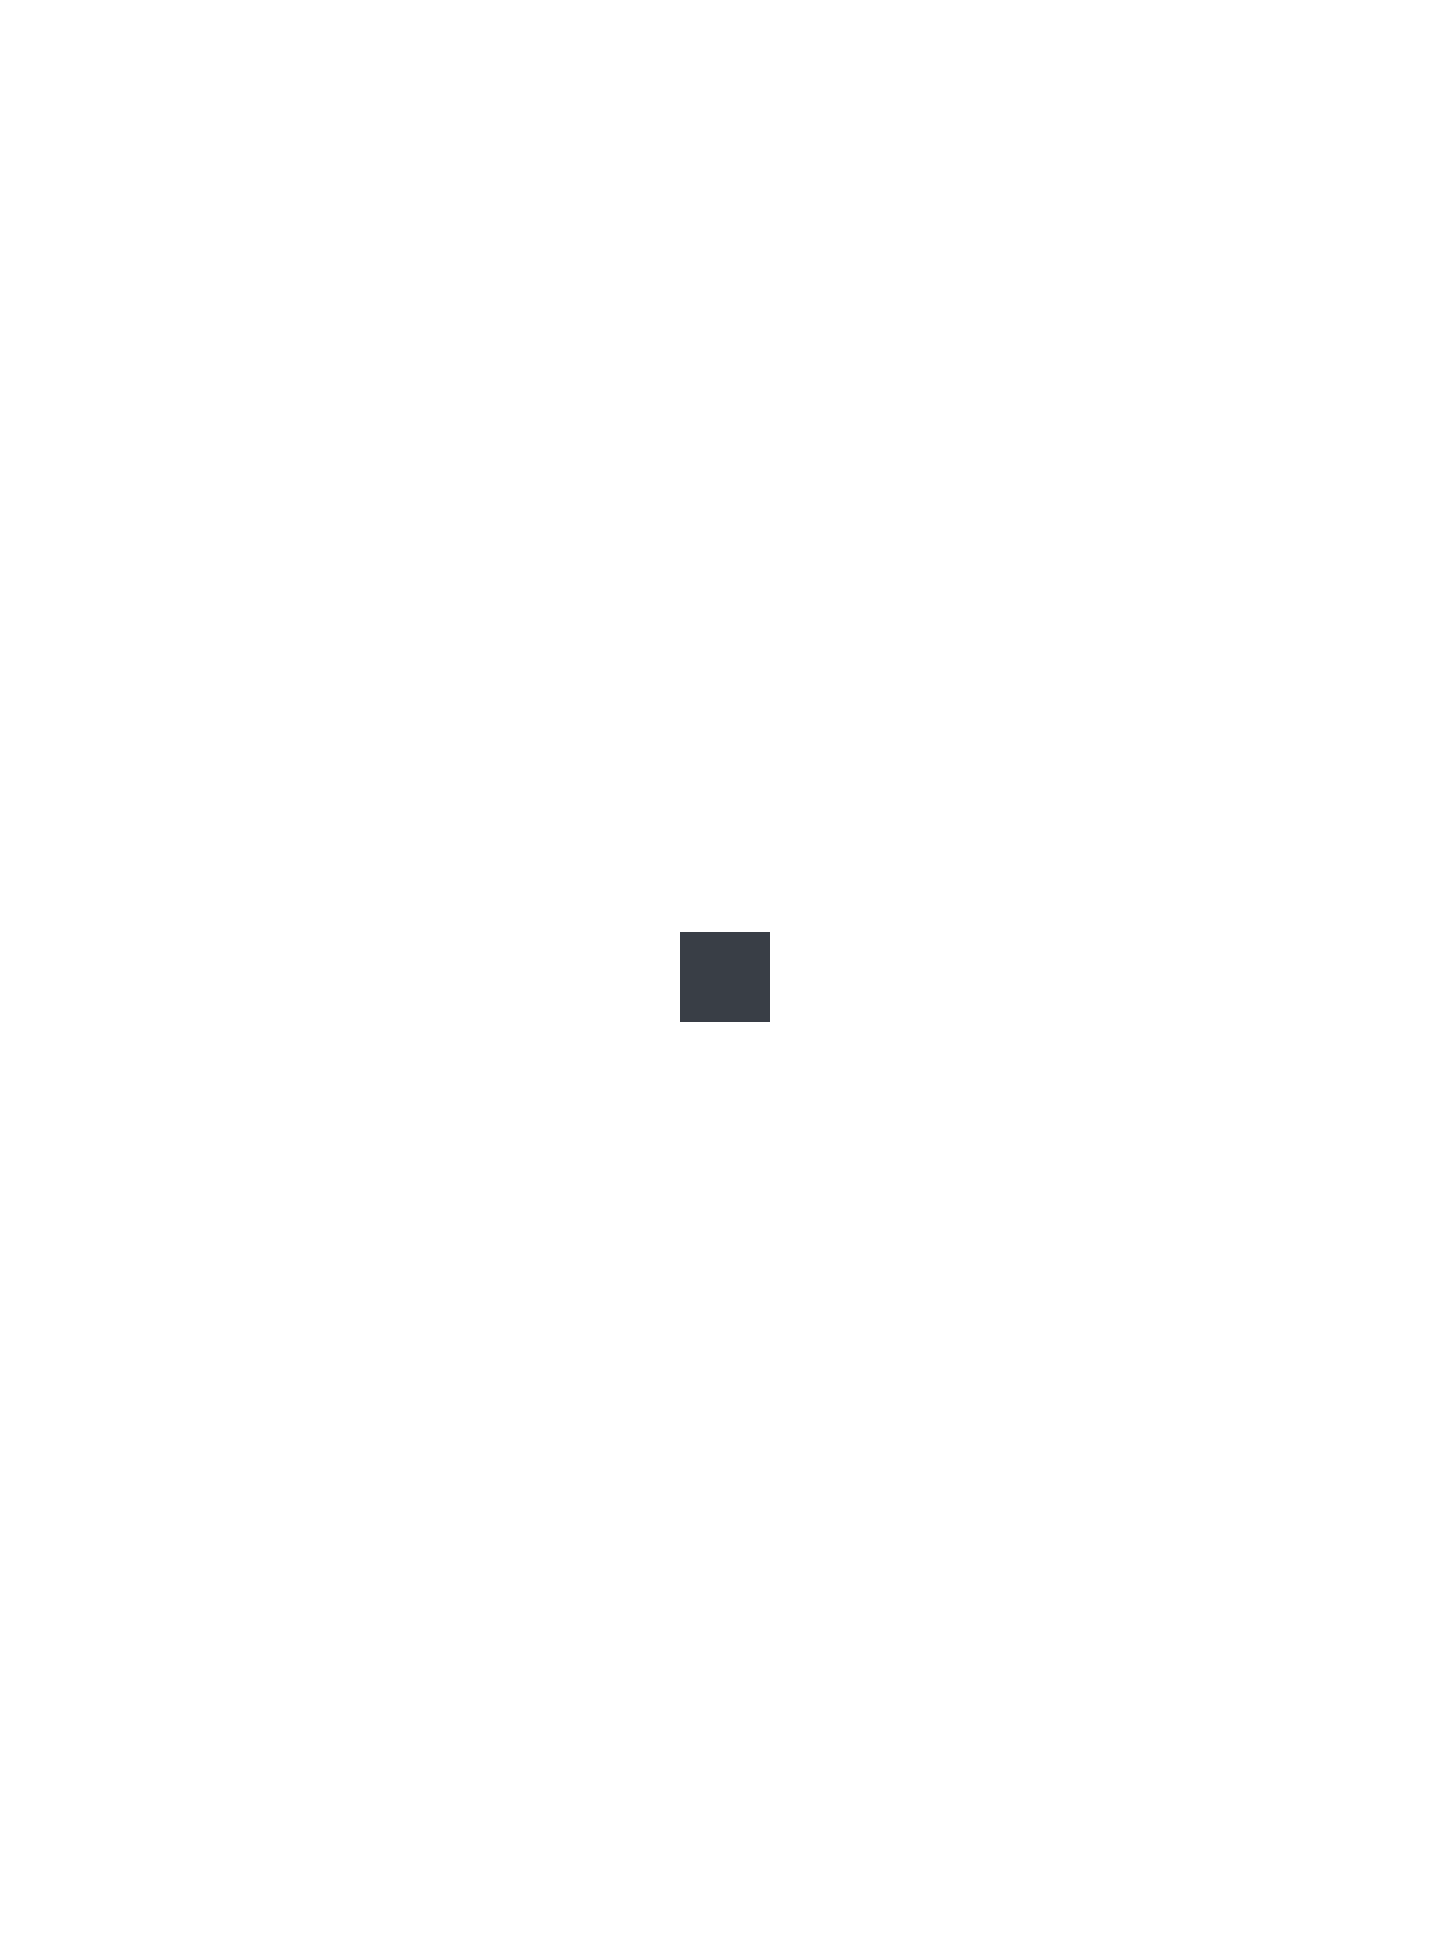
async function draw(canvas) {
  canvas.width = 1449
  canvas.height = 1951
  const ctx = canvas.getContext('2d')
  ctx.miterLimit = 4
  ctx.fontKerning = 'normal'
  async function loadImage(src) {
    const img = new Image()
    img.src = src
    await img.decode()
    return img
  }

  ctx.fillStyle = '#fff'
  ctx.fillRect(0, 0, 1449, 1951)
  ctx.drawImage(await loadImage('image0.png'), 1346, 70, 38, 39)
  ctx.drawImage(await loadImage('image1.png'), 1330, 422, 36, 33)
  ctx.drawImage(await loadImage('image2.png'), 40, 652, 670, 402)
  ctx.drawImage(await loadImage('image3.png'), 40, 1420, 21, 21)
  ctx.drawImage(await loadImage('image4.png'), 242, 1420, 21, 21)
  ctx.fillStyle = '#393e46'
  ctx.fillRect(680, 932, 90, 90)
}

draw(document.querySelector('canvas'))
